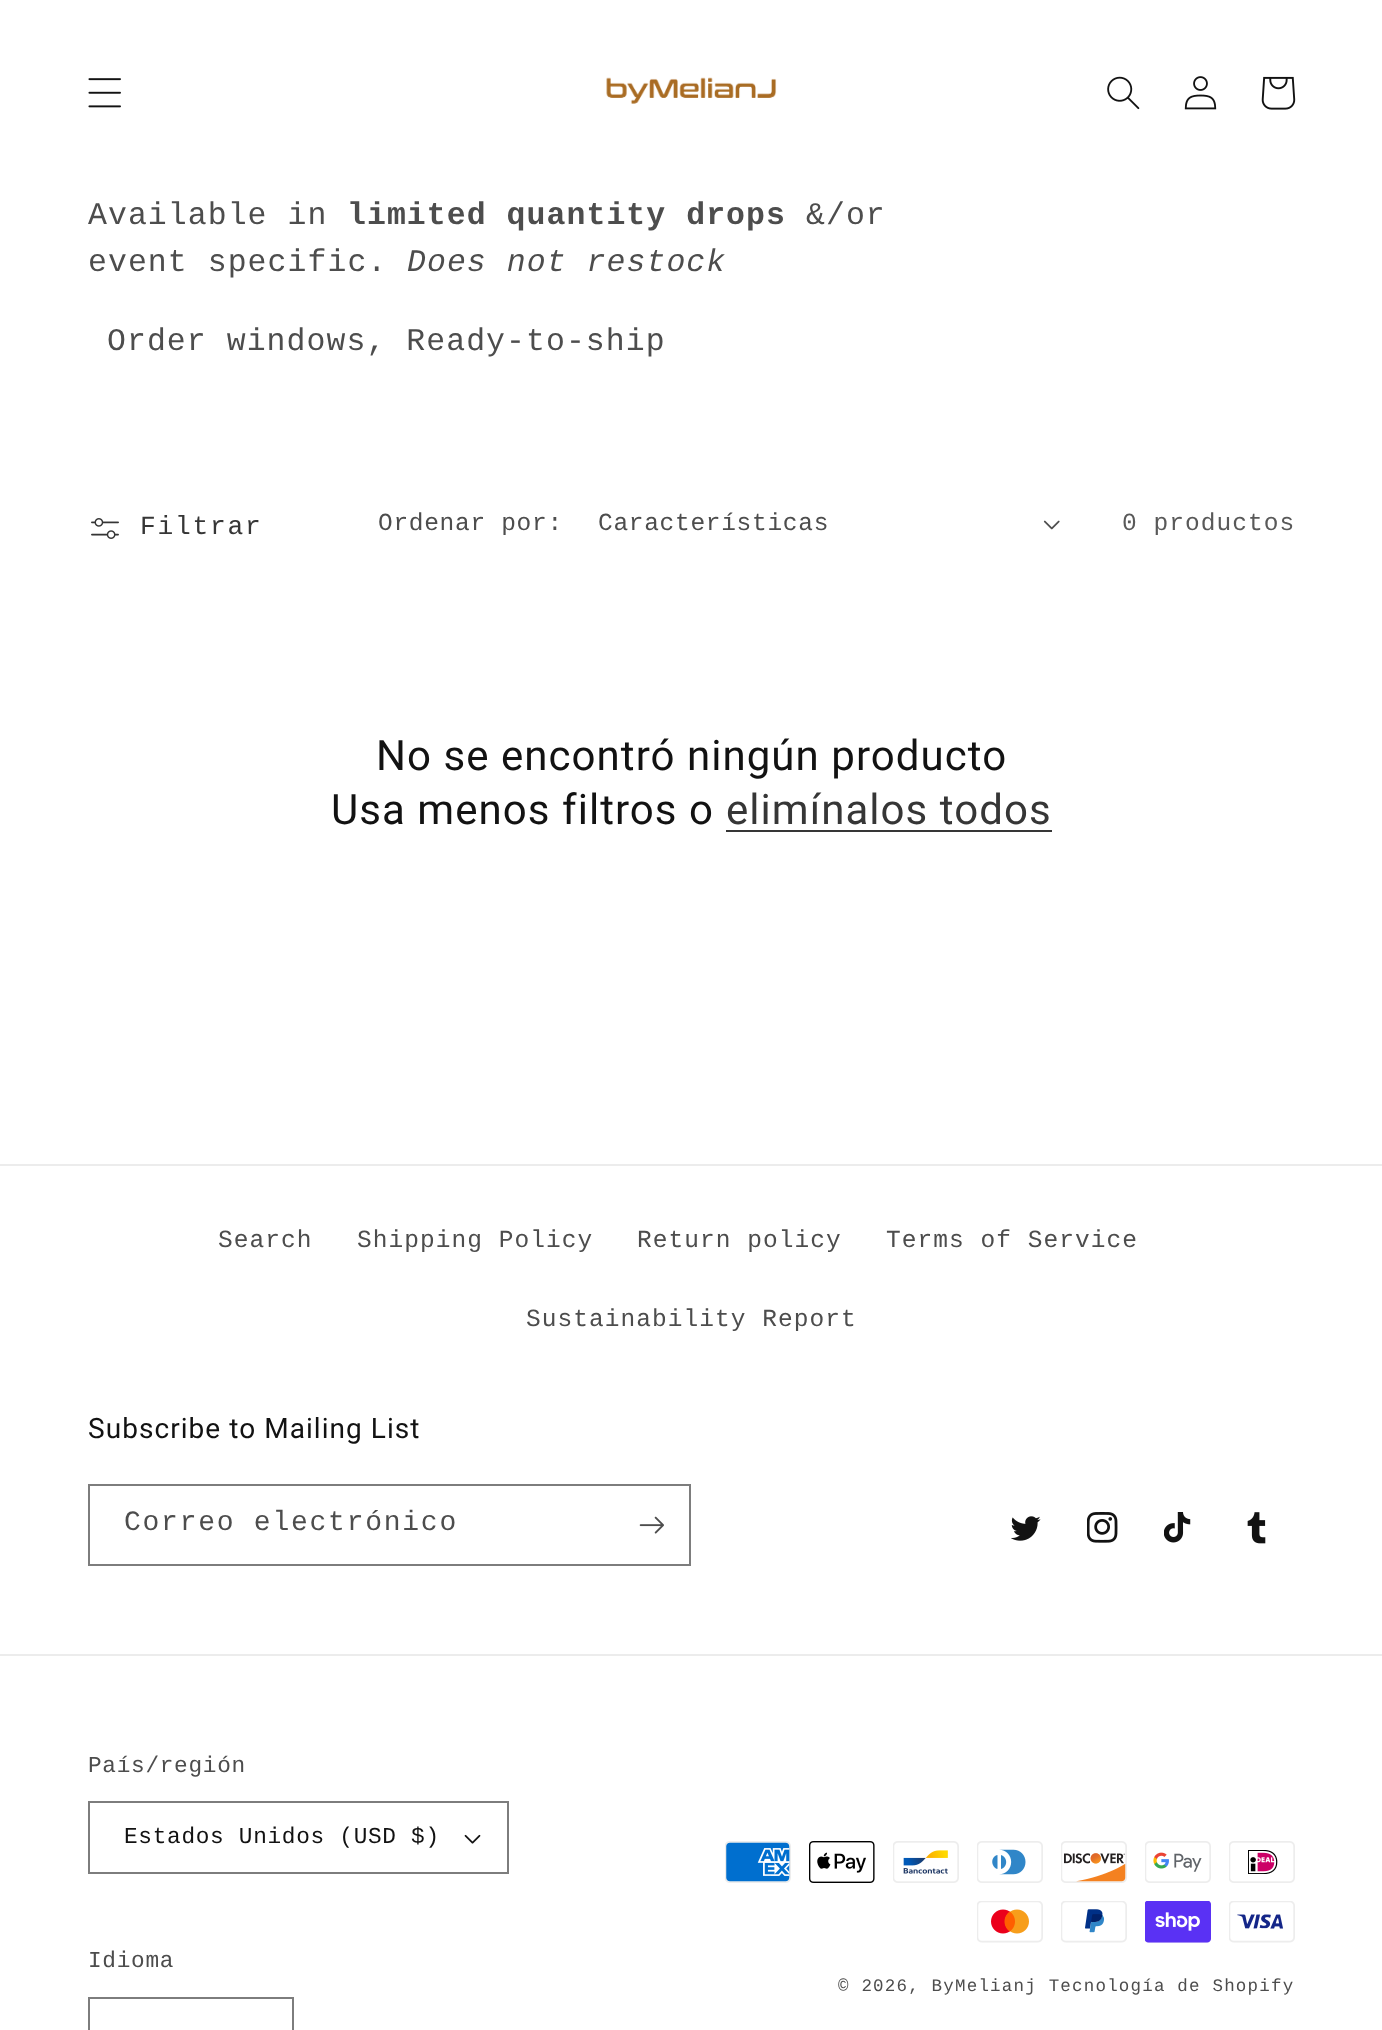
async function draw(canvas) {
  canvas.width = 1382
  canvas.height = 2030
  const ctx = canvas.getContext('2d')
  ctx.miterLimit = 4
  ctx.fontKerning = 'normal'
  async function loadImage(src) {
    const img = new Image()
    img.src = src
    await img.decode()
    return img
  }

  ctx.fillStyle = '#fff'
  ctx.fillRect(0, 0, 1382, 2030)
  ctx.drawImage(await loadImage('image0.png'), 88, 78, 33, 30)
  ctx.drawImage(await loadImage('image1.png'), 606, 77, 171, 27)
  ctx.drawImage(await loadImage('image2.png'), 1107, 76, 33, 34)
  ctx.drawImage(await loadImage('image3.png'), 1184, 76, 33, 34)
  ctx.drawImage(await loadImage('image4.png'), 1261, 76, 35, 34)
  ctx.letterSpacing = '1.05px'
  ctx.font = '31.5px Liberation Mono'
  ctx.fillStyle = '#4d4d4d'
  ctx.fillText('Available in', 88, 224)
  ctx.font = 'bold 31.5px Liberation Mono'
  ctx.fillText('limited quantity drops', 347, 224)
  ctx.font = '31.5px Liberation Mono'
  ctx.fillText('&/or', 806, 224)
  ctx.fillText('event specific.', 88, 271)
  ctx.font = 'italic 31.5px Liberation Mono'
  ctx.fillText('Does not restock', 407, 271)
  ctx.font = '31.5px Liberation Mono'
  ctx.fillText('Order windows, Ready-to-ship', 107, 350)
  ctx.drawImage(await loadImage('image5.png'), 91, 518, 28, 21)
  ctx.letterSpacing = '1.75px'
  ctx.font = '26.25px Liberation Mono'
  ctx.fillStyle = '#363636'
  ctx.fillText('Filtrar', 140, 534)
  ctx.letterSpacing = '0.7px'
  ctx.font = '24.5px Liberation Mono'
  ctx.fillStyle = '#4d4d4d'
  ctx.fillText('Ordenar por:', 378, 530)
  ctx.fillText('Características', 598, 530)
  ctx.drawImage(await loadImage('image6.png'), 1043, 520, 17, 10)
  ctx.letterSpacing = '1.05px'
  ctx.fillStyle = '#595959'
  ctx.fillText('0 productos', 1122, 530)
  ctx.font = '42px Roboto'
  ctx.fillStyle = '#121212'
  ctx.fillText('No se encontró ningún producto', 376, 770)
  ctx.fillText('Usa menos filtros o', 331, 824)
  ctx.fillStyle = '#363636'
  ctx.fillText('elimínalos todos', 726, 824)
  ctx.fillRect(726, 830, 326, 2)
  ctx.fillStyle = '#ececec'
  ctx.fillRect(0, 1164, 1382, 2)
  ctx.font = '24.5px Liberation Mono'
  ctx.fillStyle = '#4d4d4d'
  ctx.fillText('Search', 218, 1247)
  ctx.fillText('Shipping Policy', 357, 1247)
  ctx.fillText('Return policy', 637, 1247)
  ctx.fillText('Terms of Service', 886, 1247)
  ctx.fillText('Sustainability Report', 526, 1326)
  ctx.font = '28px Roboto'
  ctx.fillStyle = '#121212'
  ctx.fillText('Subscribe to Mailing List', 88, 1438)
  ctx.strokeStyle = '#7d7d7d'
  ctx.lineWidth = 2
  ctx.strokeRect(89, 1485, 601, 80)
  ctx.letterSpacing = '1.75px'
  ctx.font = '28px Liberation Mono'
  ctx.fillStyle = '#4d4d4d'
  ctx.fillText('Correo electrónico', 124, 1530)
  ctx.drawImage(await loadImage('image7.png'), 639, 1516, 25, 18)
  ctx.drawImage(await loadImage('image8.png'), 1011, 1516, 30, 25)
  ctx.drawImage(await loadImage('image9.png'), 1087, 1512, 31, 31)
  ctx.drawImage(await loadImage('image10.png'), 1164, 1512, 27, 31)
  ctx.drawImage(await loadImage('image11.png'), 1247, 1512, 19, 32)
  ctx.fillStyle = '#ececec'
  ctx.fillRect(0, 1654, 1382, 2)
  ctx.letterSpacing = '0.7px'
  ctx.font = '22.75px Liberation Mono'
  ctx.fillStyle = '#4d4d4d'
  ctx.fillText('País/región', 88, 1772)
  ctx.drawImage(await loadImage('image12.png'), 464, 1834, 17, 10)
  ctx.strokeRect(89, 1802, 419, 71)
  ctx.fillStyle = '#121212'
  ctx.fillText('Estados Unidos (USD $)', 124, 1843)
  ctx.fillStyle = '#4d4d4d'
  ctx.fillText('Idioma', 88, 1967)
  ctx.strokeRect(89, 1998, 204, 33)
  ctx.drawImage(await loadImage('image13.png'), 725, 1841, 66, 42)
  ctx.drawImage(await loadImage('image14.png'), 809, 1841, 66, 42)
  ctx.drawImage(await loadImage('image15.png'), 893, 1841, 66, 42)
  ctx.drawImage(await loadImage('image16.png'), 977, 1841, 66, 42)
  ctx.drawImage(await loadImage('image17.png'), 1061, 1841, 66, 42)
  ctx.drawImage(await loadImage('image18.png'), 1145, 1841, 66, 42)
  ctx.drawImage(await loadImage('image19.png'), 1229, 1841, 66, 42)
  ctx.drawImage(await loadImage('image20.png'), 977, 1901, 66, 42)
  ctx.drawImage(await loadImage('image21.png'), 1061, 1901, 66, 42)
  ctx.drawImage(await loadImage('image22.png'), 1145, 1901, 66, 42)
  ctx.drawImage(await loadImage('image23.png'), 1229, 1901, 66, 42)
  ctx.letterSpacing = '1.2px'
  ctx.font = '17.5px Liberation Mono'
  ctx.fillText('© 2026, ByMelianj Tecnología de Shopify', 838, 1991)
}

draw(document.querySelector('canvas'))
